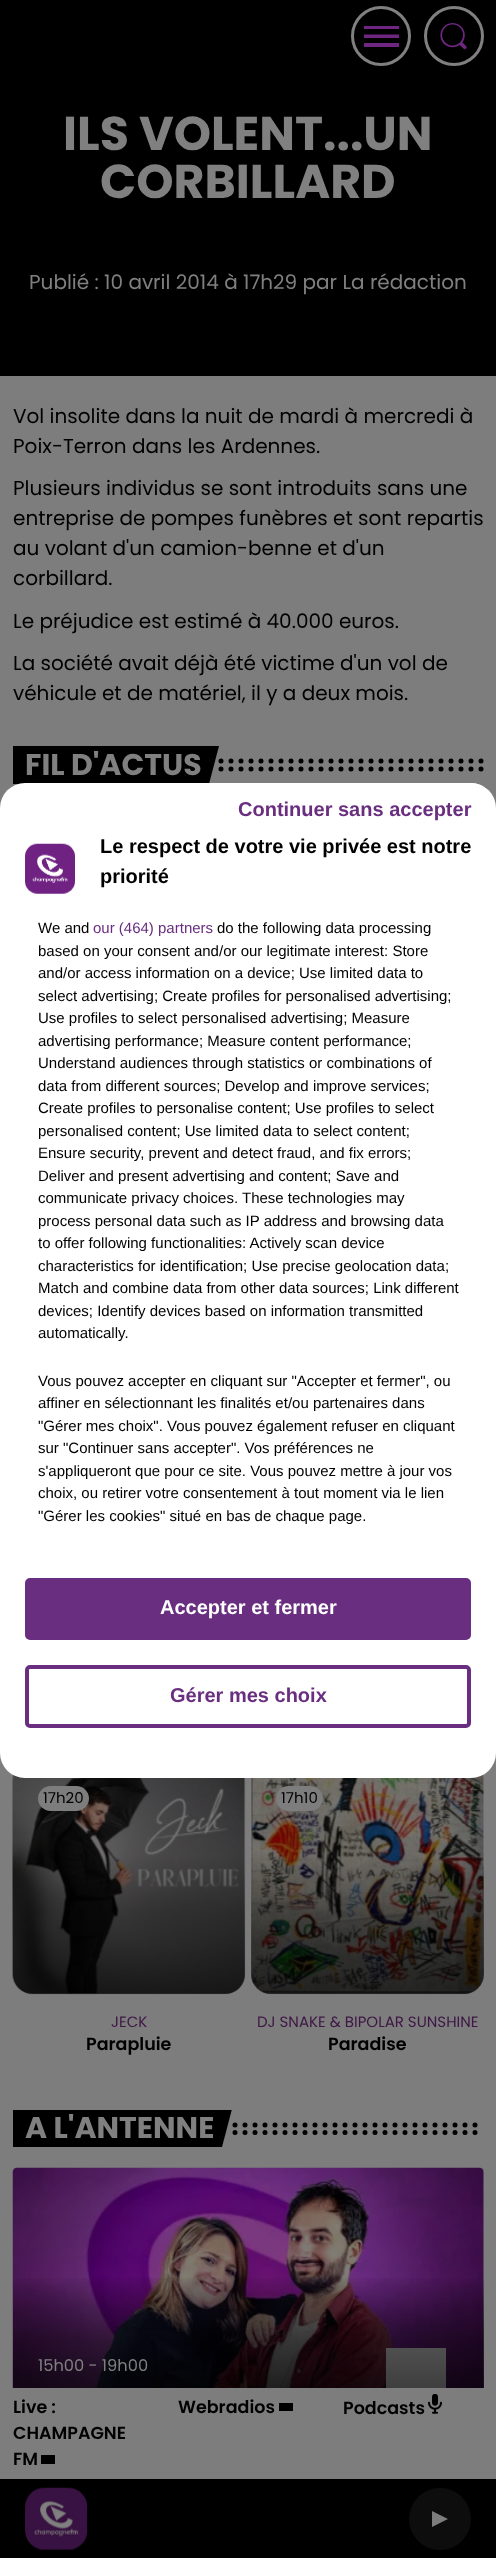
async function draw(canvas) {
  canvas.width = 496
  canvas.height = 2558
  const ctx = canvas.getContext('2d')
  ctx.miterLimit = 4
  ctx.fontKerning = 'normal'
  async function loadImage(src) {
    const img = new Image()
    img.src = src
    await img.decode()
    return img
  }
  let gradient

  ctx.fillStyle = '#7d7d7d'
  ctx.fillRect(0, 0, 496, 2558)
  ctx.fillStyle = '#000'
  ctx.fillRect(0, 0, 496, 376)
  ctx.font = 'bold 47.5px Poppins'
  ctx.fillStyle = '#808080'
  ctx.fillText('ILS VOLENT...UN', 63, 150)
  ctx.fillText('CORBILLARD', 100, 198)
  ctx.font = '20px Poppins'
  ctx.fillText('Publié : 10 avril 2014 à 17h29 par La rédaction', 29, 289)
  ctx.fillStyle = '#000'
  ctx.fillText('Vol insolite dans la nuit de mardi à mercredi à', 13, 423)
  ctx.fillText('Poix-Terron dans les Ardennes.', 13, 453)
  ctx.fillText('Plusieurs individus se sont introduits sans une', 13, 495)
  ctx.fillText('entreprise de pompes funèbres et sont repartis', 13, 525)
  ctx.fillText('au volant d\'un camion-benne et d\'un', 13, 555)
  ctx.fillText('corbillard.', 13, 585)
  ctx.fillText('Le préjudice est estimé à 40.000 euros.', 13, 628)
  ctx.fillText('La société avait déjà été victime d\'un vol de', 13, 670)
  ctx.fillText('véhicule et de matériel, il y a deux mois.', 13, 700)
  ctx.beginPath()
  ctx.moveTo(221, 761)
  ctx.lineTo(484, 761)
  ctx.strokeStyle = '#000'
  ctx.lineWidth = 5
  ctx.lineCap = 'round'
  ctx.setLineDash([0, 10])
  ctx.stroke()
  ctx.beginPath()
  ctx.moveTo(221, 769)
  ctx.lineTo(484, 769)
  ctx.stroke()
  ctx.save()
  ctx.beginPath()
  ctx.rect(13, 746, 213, 38)
  ctx.clip()
  ctx.beginPath()
  ctx.moveTo(5, 746)
  ctx.lineTo(219, 746)
  ctx.lineTo(209, 784)
  ctx.lineTo(-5, 784)
  ctx.closePath()
  ctx.fill()
  ctx.restore()
  ctx.font = 'bold 30px Poppins'
  ctx.fillStyle = '#808080'
  ctx.fillText('FIL D\'ACTUS', 25, 775)
  ctx.drawImage(await loadImage('image0.png'), 12, 1774, 234, 221)
  gradient = ctx.createLinearGradient(129, 1761, 129, 1994)
  gradient.addColorStop(0, '#00000000')
  gradient.addColorStop(0.4, '#00000000')
  gradient.addColorStop(0.65, '#00000057')
  gradient.addColorStop(1, '#000000a6')
  ctx.fillStyle = gradient
  ctx.beginPath()
  ctx.roundRect(13, 1761, 232, 233, 20)
  ctx.fill()
  ctx.fillStyle = '#7d7d7d'
  ctx.beginPath()
  ctx.roundRect(38, 1786, 51, 25, 12.5)
  ctx.fill()
  ctx.font = '15px Poppins'
  ctx.fillStyle = '#000'
  ctx.fillText('17h20', 43, 1803)
  ctx.fillStyle = '#3e1645'
  ctx.fillText('JECK', 111, 2027)
  ctx.font = '600 17.5px Poppins'
  ctx.fillStyle = '#000'
  ctx.fillText('Parapluie', 86, 2050)
  ctx.drawImage(await loadImage('image1.png'), 251, 1774, 233, 221)
  gradient = ctx.createLinearGradient(368, 1761, 368, 1994)
  gradient.addColorStop(0, '#00000000')
  gradient.addColorStop(0.4, '#00000000')
  gradient.addColorStop(0.65, '#00000057')
  gradient.addColorStop(1, '#000000a6')
  ctx.fillStyle = gradient
  ctx.beginPath()
  ctx.roundRect(251, 1761, 233, 233, 20)
  ctx.fill()
  ctx.fillStyle = '#7d7d7d'
  ctx.beginPath()
  ctx.roundRect(276, 1786, 47, 25, 12.5)
  ctx.fill()
  ctx.font = '15px Poppins'
  ctx.fillStyle = '#000'
  ctx.fillText('17h10', 281, 1803)
  ctx.fillStyle = '#3e1645'
  ctx.fillText('DJ SNAKE & BIPOLAR SUNSHINE', 257, 2027)
  ctx.font = '600 17.5px Poppins'
  ctx.fillStyle = '#000'
  ctx.fillText('Paradise', 328, 2050)
  ctx.save()
  ctx.beginPath()
  ctx.rect(13, 2110, 227, 38)
  ctx.clip()
  ctx.beginPath()
  ctx.moveTo(5, 2109)
  ctx.lineTo(232, 2109)
  ctx.lineTo(222, 2147)
  ctx.lineTo(-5, 2147)
  ctx.closePath()
  ctx.fill()
  ctx.restore()
  ctx.font = 'bold 30px Poppins'
  ctx.fillStyle = '#808080'
  ctx.fillText('A L\'ANTENNE', 25, 2138)
  ctx.beginPath()
  ctx.moveTo(235, 2125)
  ctx.lineTo(484, 2125)
  ctx.stroke()
  ctx.beginPath()
  ctx.moveTo(235, 2132.5)
  ctx.lineTo(484, 2132.5)
  ctx.stroke()
  ctx.save()
  ctx.beginPath()
  ctx.rect(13, 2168, 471, 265)
  ctx.clip()
  ctx.fillStyle = '#00000040'
  ctx.filter = 'blur(4px)'
  ctx.beginPath()
  ctx.roundRect(13, 2168, 471, 265, 5)
  ctx.fill()
  ctx.filter = 'none'
  ctx.restore()
  ctx.beginPath()
  ctx.roundRect(13, 2168, 471, 265, 5)
  ctx.fill()
  ctx.drawImage(await loadImage('image2.png'), 12, 2167, 472, 221)
  gradient = ctx.createLinearGradient(248, 2168, 248, 2433)
  gradient.addColorStop(0, '#00000000')
  gradient.addColorStop(0.4, '#00000000')
  gradient.addColorStop(0.65, '#00000057')
  gradient.addColorStop(1, '#000000a6')
  ctx.fillStyle = gradient
  ctx.fillRect(13, 2278, 471, 110)
  ctx.fillStyle = '#7d7d7d'
  ctx.fillRect(386, 2348, 60, 40)
  gradient = ctx.createLinearGradient(248, 2168, 248, 2433)
  gradient.addColorStop(0, '#00000000')
  gradient.addColorStop(0.4, '#00000000')
  gradient.addColorStop(0.65, '#00000057')
  gradient.addColorStop(1, '#000000a6')
  ctx.fillStyle = gradient
  ctx.fillRect(13, 2278, 471, 110)
  ctx.font = '16.25px Poppins'
  ctx.fillStyle = '#808080'
  ctx.fillText('15h00 - 19h00', 38, 2371)
  ctx.beginPath()
  ctx.arc(381, 36, 28.5, 0, 2 * Math.PI)
  ctx.strokeStyle = '#808080'
  ctx.lineWidth = 3
  ctx.setLineDash([])
  ctx.stroke()
  ctx.fillStyle = '#6e2680'
  ctx.beginPath()
  ctx.moveTo(364, 47)
  ctx.lineTo(364, 43)
  ctx.lineTo(399, 43)
  ctx.lineTo(399, 47)
  ctx.closePath()
  ctx.moveTo(364, 38)
  ctx.lineTo(364, 34.5)
  ctx.lineTo(399, 34.5)
  ctx.lineTo(399, 38)
  ctx.closePath()
  ctx.moveTo(364, 29)
  ctx.lineTo(364, 26)
  ctx.lineTo(399, 26)
  ctx.lineTo(399, 29)
  ctx.closePath()
  ctx.fill()
  ctx.beginPath()
  ctx.arc(454, 36, 28.5, 0, 2 * Math.PI)
  ctx.stroke()
  ctx.drawImage(await loadImage('image3.png'), 440, 23, 27, 27)
  ctx.fillStyle = '#7d7d7d'
  ctx.fillRect(13, 2388, 471, 45)
  ctx.font = '600 17.5px Poppins'
  ctx.fillStyle = '#000'
  ctx.fillText('Live :', 13, 2413)
  ctx.fillText('CHAMPAGNE', 13, 2439)
  ctx.fillText('FM', 13, 2465)
  ctx.fillRect(41, 2455, 14, 9)
  ctx.fillText('Webradios', 178, 2413)
  ctx.fillRect(279, 2403, 14, 8)
  ctx.fillText('Podcasts', 343, 2414)
  ctx.drawImage(await loadImage('image4.png'), 428, 2394, 14, 20)
  ctx.fillRect(0, 2479, 496, 79)
  ctx.drawImage(await loadImage('image5.png'), 25, 2487, 63, 63)
  ctx.fillStyle = '#0d0d0d'
  ctx.beginPath()
  ctx.arc(440, 2519, 31, 0, 2 * Math.PI)
  ctx.fill()
  ctx.fillStyle = '#7d7d7d'
  ctx.beginPath()
  ctx.moveTo(448, 2519)
  ctx.lineTo(432, 2527)
  ctx.lineTo(432, 2511)
  ctx.closePath()
  ctx.fill()
  ctx.fillStyle = '#fff'
  ctx.beginPath()
  ctx.roundRect(0, 783, 496, 995, 25)
  ctx.fill()
  ctx.save()
  ctx.beginPath()
  ctx.roundRect(0, 783, 496, 995, 25)
  ctx.clip()
  ctx.beginPath()
  ctx.roundRect(225, 783, 259, 55, 5)
  ctx.fill()
  ctx.restore()
  ctx.font = 'bold 20px Liberation Sans'
  ctx.fillStyle = '#692e7f'
  ctx.fillText('Continuer sans accepter', 238, 816)
  ctx.beginPath()
  ctx.roundRect(27, 1580, 442, 58, 3)
  ctx.fill()
  ctx.strokeStyle = '#692e7f'
  ctx.lineWidth = 4
  ctx.stroke()
  ctx.fillStyle = '#fff'
  ctx.fillText('Accepter et fermer', 160, 1614)
  ctx.beginPath()
  ctx.roundRect(27, 1667, 442, 59, 3)
  ctx.stroke()
  ctx.fillStyle = '#692e7f'
  ctx.fillText('Gérer mes choix', 170, 1702)
  ctx.drawImage(await loadImage('image6.png'), 25, 843, 50, 51)
  ctx.fillStyle = '#000'
  ctx.fillText('Le respect de votre vie privée est notre', 100, 853)
  ctx.fillText('priorité', 100, 883)
  ctx.font = '15px Liberation Sans'
  ctx.fillText('We and', 38, 933)
  ctx.fillStyle = '#692e7f'
  ctx.fillText('our (464) partners', 93, 933)
  ctx.fillStyle = '#000'
  ctx.fillText('do the following data processing', 217, 933)
  ctx.fillText('based on your consent and/or our legitimate interest: Store', 38, 956)
  ctx.fillText('and/or access information on a device; Use limited data to', 38, 978)
  ctx.fillText('select advertising; Create profiles for personalised advertising;', 38, 1001)
  ctx.fillText('Use profiles to select personalised advertising; Measure', 38, 1023)
  ctx.fillText('advertising performance; Measure content performance;', 38, 1046)
  ctx.fillText('Understand audiences through statistics or combinations of', 38, 1068)
  ctx.fillText('data from different sources; Develop and improve services;', 38, 1091)
  ctx.fillText('Create profiles to personalise content; Use profiles to select', 38, 1113)
  ctx.fillText('personalised content; Use limited data to select content;', 38, 1136)
  ctx.fillText('Ensure security, prevent and detect fraud, and fix errors;', 38, 1158)
  ctx.fillText('Deliver and present advertising and content; Save and', 38, 1181)
  ctx.fillText('communicate privacy choices. These technologies may', 38, 1203)
  ctx.fillText('process personal data such as IP address and browsing data', 38, 1226)
  ctx.fillText('to offer following functionalities: Actively scan device', 38, 1248)
  ctx.fillText('characteristics for identification; Use precise geolocation data;', 38, 1271)
  ctx.fillText('Match and combine data from other data sources; Link different', 38, 1293)
  ctx.fillText('devices; Identify devices based on information transmitted', 38, 1316)
  ctx.fillText('automatically.', 38, 1338)
  ctx.fillText('Vous pouvez accepter en cliquant sur "Accepter et fermer", ou', 38, 1386)
  ctx.fillText('affiner en sélectionnant les finalités et/ou partenaires dans', 38, 1408)
  ctx.fillText('"Gérer mes choix". Vous pouvez également refuser en cliquant', 38, 1431)
  ctx.fillText('sur "Continuer sans accepter". Vos préférences ne', 38, 1453)
  ctx.fillText('s\'appliqueront que pour ce site. Vous pouvez mettre à jour vos', 38, 1476)
  ctx.fillText('choix, ou retirer votre consentement à tout moment via le lien', 38, 1498)
  ctx.fillText('"Gérer les cookies" situé en bas de chaque page.', 38, 1521)
}

draw(document.querySelector('canvas'))
